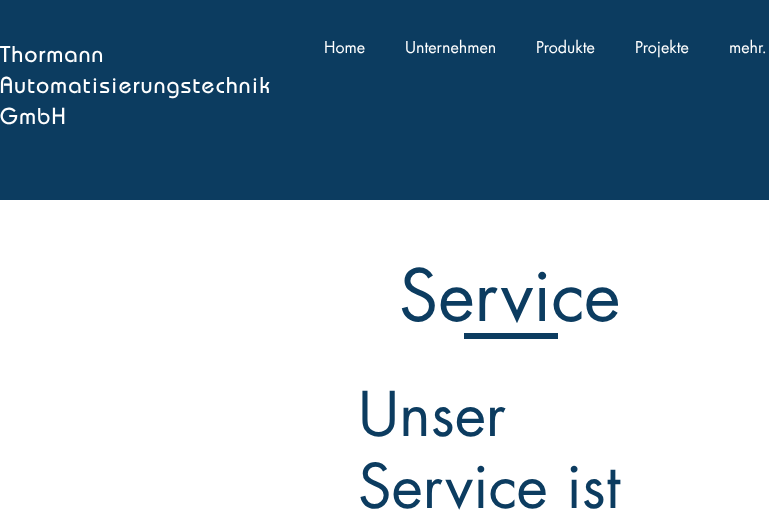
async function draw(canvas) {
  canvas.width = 769
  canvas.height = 529
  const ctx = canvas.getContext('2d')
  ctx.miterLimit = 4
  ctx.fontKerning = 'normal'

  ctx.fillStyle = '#fff'
  ctx.fillRect(0, 0, 769, 529)
  ctx.fillStyle = '#0c3c60'
  ctx.fillRect(0, 0, 769, 200)
  ctx.letterSpacing = '1.4px'
  ctx.font = '23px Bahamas'
  ctx.fillStyle = '#fff'
  ctx.fillText('Thormann', 0, 62)
  ctx.fillText('Automatisierungstechnik', 0, 93)
  ctx.fillText('GmbH', 0, 124)
  ctx.letterSpacing = '0px'
  ctx.font = '16px futura'
  ctx.fillText('Home', 324, 53)
  ctx.fillText('Unternehmen', 405, 53)
  ctx.fillText('Produkte', 536, 53)
  ctx.fillText('Projekte', 635, 53)
  ctx.fillText('mehr.', 729, 53)
  ctx.font = '70px futura'
  ctx.fillStyle = '#0c3c60'
  ctx.fillText('Service', 399, 321)
  ctx.fillRect(464, 333, 94, 6)
  ctx.font = '60px futura'
  ctx.fillText('Unser', 358, 436)
  ctx.fillText('Service ist', 358, 508)
}

draw(document.querySelector('canvas'))
